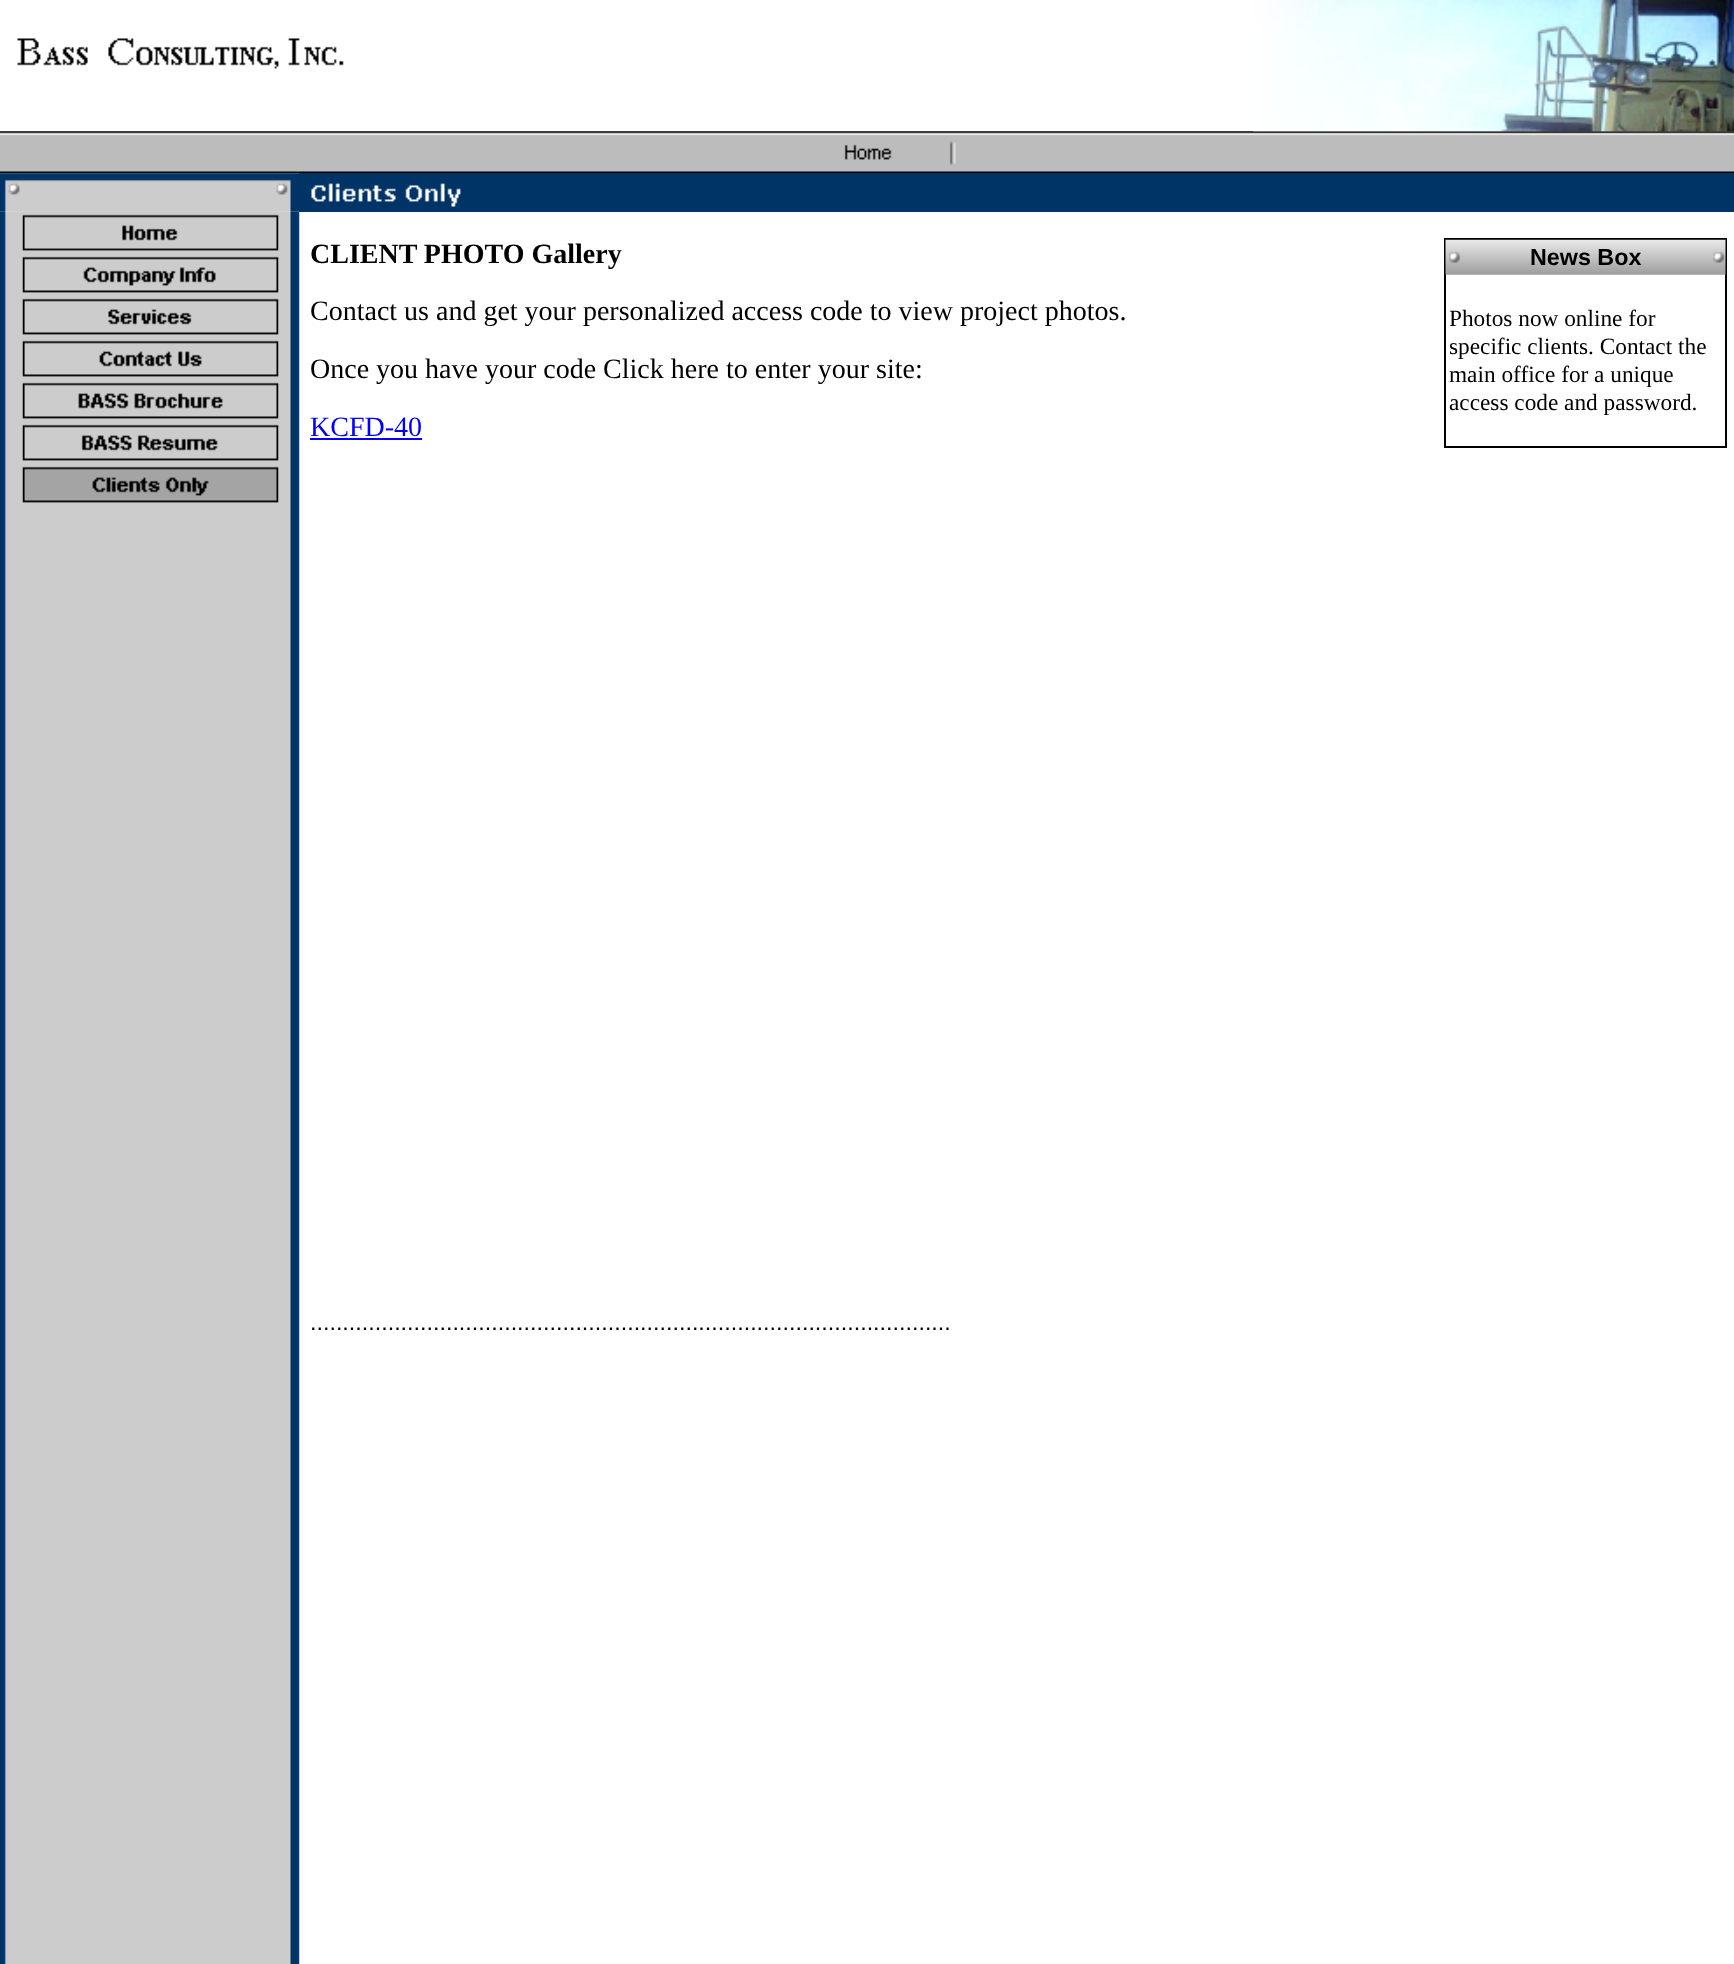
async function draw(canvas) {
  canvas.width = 1734
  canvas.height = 1964
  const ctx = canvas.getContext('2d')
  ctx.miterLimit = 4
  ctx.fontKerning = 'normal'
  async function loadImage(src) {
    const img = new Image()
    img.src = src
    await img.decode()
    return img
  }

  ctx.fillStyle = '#fff'
  ctx.fillRect(0, 0, 1734, 1964)
  ctx.drawImage(await loadImage('image0.png'), 17, 38, 327, 31)
  ctx.drawImage(await loadImage('image2.png'), 0, 131, 1734, 43)
  ctx.drawImage(await loadImage('image1.png'), 1253, 0, 481, 132)
  ctx.drawImage(await loadImage('image3.png'), 844, 141, 112, 24)
  ctx.fillStyle = '#036'
  ctx.fillRect(299, 173, 1435, 39)
  ctx.drawImage(await loadImage('image6.png'), 0, 211, 300, 1753)
  ctx.drawImage(await loadImage('image4.png'), 0, 173, 299, 39)
  ctx.drawImage(await loadImage('image5.png'), 311, 183, 150, 24)
  ctx.drawImage(await loadImage('image7.png'), 22, 214, 257, 37)
  ctx.drawImage(await loadImage('image8.png'), 22, 256, 257, 37)
  ctx.drawImage(await loadImage('image9.png'), 22, 298, 257, 37)
  ctx.drawImage(await loadImage('image10.png'), 22, 340, 257, 37)
  ctx.drawImage(await loadImage('image11.png'), 22, 382, 257, 37)
  ctx.drawImage(await loadImage('image12.png'), 22, 424, 257, 37)
  ctx.drawImage(await loadImage('image13.png'), 22, 466, 257, 37)
  ctx.font = 'bold 28px Liberation Serif'
  ctx.fillStyle = '#000'
  ctx.fillText('CLIENT PHOTO Gallery', 310, 263)
  ctx.font = '28px Liberation Serif'
  ctx.fillText('Contact us and get your personalized access code to view project photos.', 310, 320)
  ctx.fillText('Once you have your code Click here to enter your site:', 310, 378)
  ctx.fillStyle = '#00f'
  ctx.fillText('KCFD-40', 310, 436)
  ctx.fillRect(310, 438, 112, 2)
  ctx.font = '23.3px Liberation Sans'
  ctx.fillStyle = '#000'
  ctx.fillText('...................................................................................................', 310, 1330)
  ctx.strokeStyle = '#000'
  ctx.lineWidth = 2
  ctx.strokeRect(1445, 239, 281, 208)
  ctx.drawImage(await loadImage('image14.png'), 1445, 239, 281, 36)
  ctx.font = 'bold 23.3px Liberation Sans'
  ctx.fillText('News Box', 1530, 265)
  ctx.font = '23.3px Liberation Serif'
  ctx.fillText('Photos now online for', 1449, 326)
  ctx.fillText('specific clients. Contact the', 1449, 354)
  ctx.fillText('main office for a unique', 1449, 382)
  ctx.fillText('access code and password.', 1449, 410)
}

draw(document.querySelector('canvas'))
